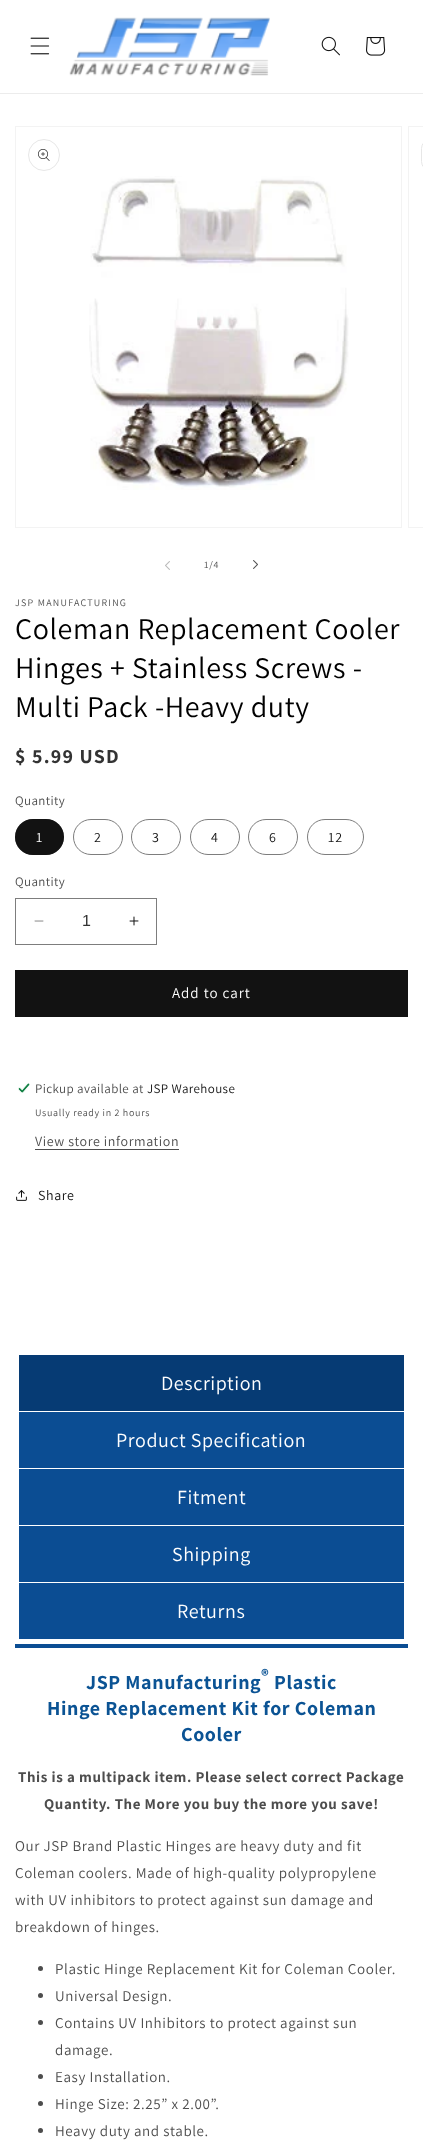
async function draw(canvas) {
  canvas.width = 423
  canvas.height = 2152
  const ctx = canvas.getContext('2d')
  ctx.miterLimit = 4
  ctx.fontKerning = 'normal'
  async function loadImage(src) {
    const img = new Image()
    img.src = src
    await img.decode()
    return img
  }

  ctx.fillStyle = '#fff'
  ctx.fillRect(0, 0, 423, 2152)
  ctx.fillStyle = '#ececec'
  ctx.fillRect(0, 93, 423, 1)
  ctx.drawImage(await loadImage('image0.png'), 30, 37, 20, 18)
  ctx.drawImage(await loadImage('image1.png'), 69, 17, 201, 59)
  ctx.drawImage(await loadImage('image2.png'), 321, 36, 19, 20)
  ctx.drawImage(await loadImage('image3.png'), 366, 37, 20, 19)
  ctx.strokeStyle = '#f3f3f3'
  ctx.strokeRect(15.5, 126.5, 386, 401)
  ctx.beginPath()
  ctx.arc(44, 155, 15.5, 0, 2 * Math.PI)
  ctx.strokeStyle = '#e7e7e7'
  ctx.stroke()
  ctx.drawImage(await loadImage('image4.png'), 38, 149, 12, 12)
  ctx.drawImage(await loadImage('image5.png'), 89, 176, 260, 314)
  ctx.strokeStyle = '#f3f3f3'
  ctx.strokeRect(408.5, 126.5, 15, 401)
  ctx.beginPath()
  ctx.roundRect(421.5, 139.5, 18, 31, 15.5)
  ctx.strokeStyle = '#e7e7e7'
  ctx.stroke()
  ctx.drawImage(await loadImage('image6.png'), 165, 561, 5, 9)
  ctx.letterSpacing = '0.7px'
  ctx.font = '10px Assistant'
  ctx.fillStyle = '#4d4d4d'
  ctx.fillText('1/4', 204, 568)
  ctx.drawImage(await loadImage('image7.png'), 253, 560, 5, 9)
  ctx.letterSpacing = '1.25px'
  ctx.fillText('JSP MANUFACTURING', 15, 606)
  ctx.letterSpacing = '0.6px'
  ctx.font = '30px Assistant'
  ctx.fillStyle = '#000'
  ctx.fillText('Coleman Replacement Cooler', 15, 639)
  ctx.fillText('Hinges + Stainless Screws -', 15, 678)
  ctx.fillText('Multi Pack -Heavy duty', 15, 717)
  ctx.letterSpacing = '1.25px'
  ctx.font = 'bold 20px Assistant'
  ctx.fillStyle = '#333'
  ctx.fillText('$ 5.99 USD', 15, 763)
  ctx.letterSpacing = '0.4px'
  ctx.font = '13px Assistant'
  ctx.fillStyle = '#4d4d4d'
  ctx.fillText('Quantity', 15, 805)
  ctx.fillStyle = '#121212'
  ctx.beginPath()
  ctx.roundRect(15, 819, 49, 36, 18)
  ctx.fill()
  ctx.beginPath()
  ctx.roundRect(15.5, 819.5, 48, 35, 17.5)
  ctx.strokeStyle = '#1212128c'
  ctx.stroke()
  ctx.letterSpacing = '1px'
  ctx.font = '14px Assistant'
  ctx.fillStyle = '#fff'
  ctx.fillText('1', 36, 842)
  ctx.beginPath()
  ctx.roundRect(73.5, 819.5, 49, 35, 17.5)
  ctx.strokeStyle = '#7d7d7d'
  ctx.stroke()
  ctx.fillStyle = '#121212'
  ctx.fillText('2', 94, 842)
  ctx.beginPath()
  ctx.roundRect(131.5, 819.5, 49, 35, 17.5)
  ctx.stroke()
  ctx.fillText('3', 152, 842)
  ctx.beginPath()
  ctx.roundRect(190.5, 819.5, 49, 35, 17.5)
  ctx.stroke()
  ctx.fillText('4', 211, 842)
  ctx.beginPath()
  ctx.roundRect(248.5, 819.5, 49, 35, 17.5)
  ctx.stroke()
  ctx.fillText('6', 269, 842)
  ctx.beginPath()
  ctx.roundRect(307.5, 819.5, 56, 35, 17.5)
  ctx.stroke()
  ctx.fillText('12', 328, 842)
  ctx.letterSpacing = '0.4px'
  ctx.font = '13px Assistant'
  ctx.fillStyle = '#4d4d4d'
  ctx.fillText('Quantity', 15, 886)
  ctx.drawImage(await loadImage('image8.png'), 34, 920, 10, 2)
  ctx.drawImage(await loadImage('image9.png'), 129, 916, 10, 10)
  ctx.strokeRect(15.5, 898.5, 141, 46)
  ctx.letterSpacing = '0px'
  ctx.font = '16px Liberation Sans'
  ctx.fillStyle = '#333'
  ctx.fillText('1', 82, 926)
  ctx.fillStyle = '#121212'
  ctx.fillRect(15, 970, 393, 47)
  ctx.letterSpacing = '1px'
  ctx.font = '15px Assistant'
  ctx.fillStyle = '#fff'
  ctx.fillText('Add to cart', 172, 998)
  ctx.drawImage(await loadImage('image10.png'), 18, 1083, 12, 10)
  ctx.letterSpacing = '0.4px'
  ctx.font = '13px Assistant'
  ctx.fillStyle = '#4d4d4d'
  ctx.fillText('Pickup available at', 35, 1093)
  ctx.fillStyle = '#121212'
  ctx.fillText('JSP Warehouse', 147, 1093)
  ctx.letterSpacing = '0.7px'
  ctx.font = '10px Assistant'
  ctx.fillStyle = '#4d4d4d'
  ctx.fillText('Usually ready in 2 hours', 35, 1116)
  ctx.letterSpacing = '0.6px'
  ctx.font = '14px Assistant'
  ctx.fillText('View store information', 35, 1146)
  ctx.fillRect(35, 1149, 144, 1)
  ctx.drawImage(await loadImage('image11.png'), 16, 1190, 11, 11)
  ctx.fillStyle = '#121212'
  ctx.fillText('Share', 38, 1200)
  ctx.fillStyle = '#0b4d93'
  ctx.fillRect(15, 1644, 393, 4)
  ctx.fillStyle = '#063b74'
  ctx.fillRect(19, 1355, 385, 56)
  ctx.font = '20px Assistant'
  ctx.fillStyle = '#fff'
  ctx.fillText('Description', 161, 1390)
  ctx.fillStyle = '#0b4d93'
  ctx.fillRect(19, 1412, 385, 56)
  ctx.fillStyle = '#fff'
  ctx.fillText('Product Specification', 116, 1447)
  ctx.fillStyle = '#0b4d93'
  ctx.fillRect(19, 1469, 385, 56)
  ctx.fillStyle = '#fff'
  ctx.fillText('Fitment', 177, 1504)
  ctx.fillStyle = '#0b4d93'
  ctx.fillRect(19, 1526, 385, 56)
  ctx.fillStyle = '#fff'
  ctx.fillText('Shipping', 172, 1561)
  ctx.fillStyle = '#0b4d93'
  ctx.fillRect(19, 1583, 385, 56)
  ctx.fillStyle = '#fff'
  ctx.fillText('Returns', 177, 1618)
  ctx.font = 'bold 17px Assistant'
  ctx.fillStyle = '#0b5394'
  ctx.fillText('®', 261, 1681)
  ctx.font = 'bold 20px Assistant'
  ctx.fillText('JSP Manufacturing', 86, 1689)
  ctx.fillText('Plastic', 274, 1689)
  ctx.fillText('Hinge Replacement Kit for Coleman', 47, 1715)
  ctx.fillText('Cooler', 181, 1741)
  ctx.font = 'bold 15px Assistant'
  ctx.fillStyle = '#4d4d4d'
  ctx.fillText('This is a multipack item. Please select correct Package', 18, 1782)
  ctx.fillText('Quantity. The More you buy the more you save!', 44, 1809)
  ctx.font = '15px Assistant'
  ctx.fillText('Our JSP Brand Plastic Hinges are heavy duty and fit', 15, 1851)
  ctx.fillText('Coleman coolers. Made of high-quality polypropylene', 15, 1878)
  ctx.fillText('with UV inhibitors to protect against sun damage and', 15, 1905)
  ctx.fillText('breakdown of hinges.', 15, 1932)
  ctx.beginPath()
  ctx.arc(40.5, 1968.5, 2.5, 0, 2 * Math.PI)
  ctx.fill()
  ctx.fillText('Plastic Hinge Replacement Kit for Coleman Cooler.', 55, 1974)
  ctx.beginPath()
  ctx.arc(40.5, 1995.5, 2.5, 0, 2 * Math.PI)
  ctx.fill()
  ctx.fillText('Universal Design.', 55, 2001)
  ctx.beginPath()
  ctx.arc(40.5, 2022.5, 2.5, 0, 2 * Math.PI)
  ctx.fill()
  ctx.fillText('Contains UV Inhibitors to protect against sun', 55, 2028)
  ctx.fillText('damage.', 55, 2055)
  ctx.beginPath()
  ctx.arc(40.5, 2076.5, 2.5, 0, 2 * Math.PI)
  ctx.fill()
  ctx.fillText('Easy Installation.', 55, 2082)
  ctx.beginPath()
  ctx.arc(40.5, 2103.5, 2.5, 0, 2 * Math.PI)
  ctx.fill()
  ctx.fillText('Hinge Size: 2.25” x 2.00”.', 55, 2109)
  ctx.beginPath()
  ctx.arc(40.5, 2130.5, 2.5, 0, 2 * Math.PI)
  ctx.fill()
  ctx.fillText('Heavy duty and stable.', 55, 2136)
}

draw(document.querySelector('canvas'))
